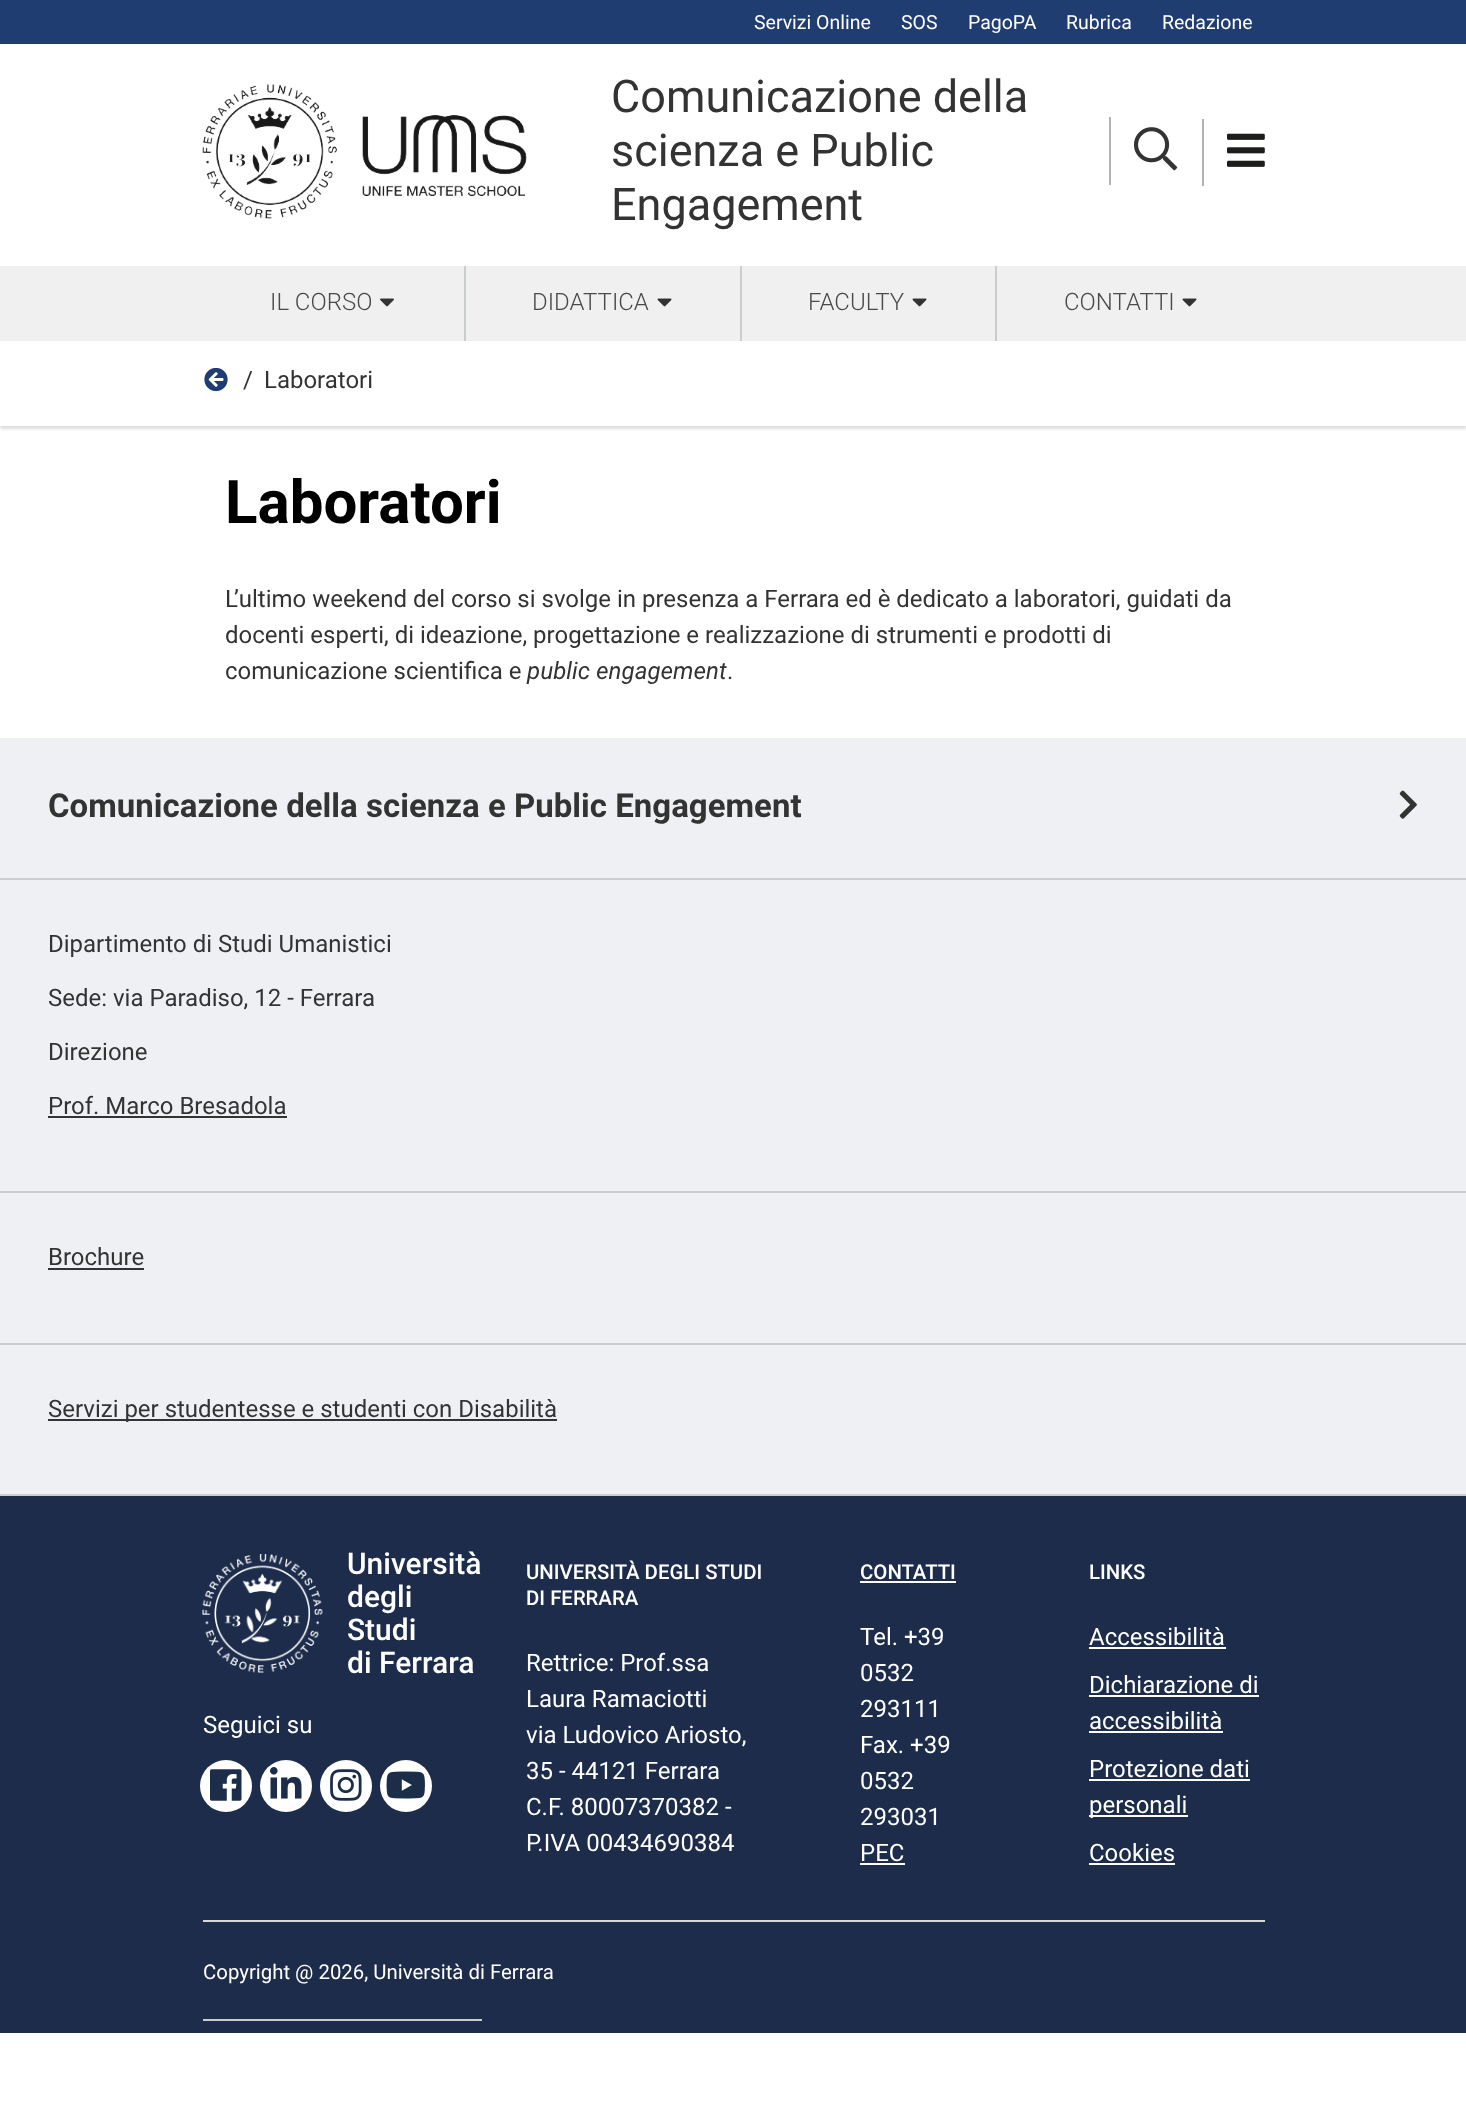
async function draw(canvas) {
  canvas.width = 1466
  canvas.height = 2128
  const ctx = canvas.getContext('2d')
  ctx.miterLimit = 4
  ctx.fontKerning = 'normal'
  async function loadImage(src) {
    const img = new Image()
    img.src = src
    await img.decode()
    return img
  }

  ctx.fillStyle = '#fff'
  ctx.fillRect(0, 0, 1466, 2128)
  ctx.fillStyle = '#203d71'
  ctx.fillRect(0, 0, 1466, 44)
  ctx.font = '19.5px Roboto'
  ctx.fillStyle = '#fff'
  ctx.fillText('Servizi Online', 754, 29)
  ctx.fillText('SOS', 901, 29)
  ctx.fillText('PagoPA', 968, 29)
  ctx.fillText('Rubrica', 1066, 29)
  ctx.fillText('Redazione', 1162, 29)
  ctx.drawImage(await loadImage('image0.png'), 202, 84, 325, 135)
  ctx.font = '45px Roboto'
  ctx.fillStyle = '#333'
  ctx.fillText('Comunicazione della', 611, 112)
  ctx.fillText('scienza e Public', 611, 166)
  ctx.fillText('Engagement', 611, 220)
  ctx.fillStyle = '#b3b3b3'
  ctx.fillRect(1109, 117, 2, 68)
  ctx.drawImage(await loadImage('image1.png'), 1134, 127, 44, 44)
  ctx.fillRect(1202, 119, 2, 67)
  ctx.drawImage(await loadImage('image2.png'), 1227, 133, 38, 34)
  ctx.save()
  ctx.beginPath()
  ctx.rect(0, 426, 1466, 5)
  ctx.clip()
  ctx.fillStyle = '#00000021'
  ctx.filter = 'blur(1.5px)'
  ctx.beginPath()
  ctx.rect(0, 344, 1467, 85)
  ctx.fill()
  ctx.filter = 'none'
  ctx.restore()
  ctx.fillStyle = '#f0f0f0'
  ctx.fillRect(0, 266, 1466, 75)
  ctx.fillStyle = '#c8cecd'
  ctx.fillRect(464, 266, 2, 75)
  ctx.font = '300 24px Roboto'
  ctx.fillStyle = '#4a4a4a'
  ctx.fillText('IL CORSO', 270, 310)
  ctx.drawImage(await loadImage('image3.png'), 380, 298, 14, 9)
  ctx.fillStyle = '#c8cecd'
  ctx.fillRect(740, 266, 2, 75)
  ctx.fillStyle = '#4a4a4a'
  ctx.fillText('DIDATTICA', 532, 310)
  ctx.drawImage(await loadImage('image4.png'), 657, 298, 15, 9)
  ctx.fillStyle = '#c8cecd'
  ctx.fillRect(995, 266, 2, 75)
  ctx.fillStyle = '#4a4a4a'
  ctx.fillText('FACULTY', 808, 310)
  ctx.drawImage(await loadImage('image4.png'), 912, 298, 15, 9)
  ctx.fillText('CONTATTI', 1064, 310)
  ctx.drawImage(await loadImage('image4.png'), 1182, 298, 15, 9)
  ctx.drawImage(await loadImage('image5.png'), 204, 368, 24, 24)
  ctx.font = '24px Roboto'
  ctx.fillStyle = '#333'
  ctx.fillText('/', 243, 388)
  ctx.fillText('Laboratori', 264, 388)
  ctx.font = 'bold 60px Roboto'
  ctx.fillStyle = '#000'
  ctx.fillText('Laboratori', 225, 523)
  ctx.font = '24px Roboto'
  ctx.fillStyle = '#333'
  ctx.fillText('L’ultimo weekend del corso si svolge in presenza a Ferrara ed è dedicato a laboratori, guidati da', 225, 607)
  ctx.fillText('docenti esperti, di ideazione, progettazione e realizzazione di strumenti e prodotti di', 225, 643)
  ctx.fillText('comunicazione scientifica e', 225, 679)
  ctx.font = 'italic 24px Roboto'
  ctx.fillText('public engagement', 527, 679)
  ctx.font = '24px Roboto'
  ctx.fillText('.', 727, 679)
  ctx.fillStyle = '#eef0f4'
  ctx.fillRect(0, 738, 1466, 756)
  ctx.fillStyle = '#ccc'
  ctx.fillRect(0, 878, 1466, 2)
  ctx.font = 'bold 33px Roboto'
  ctx.fillStyle = '#333'
  ctx.fillText('Comunicazione della scienza e Public Engagement', 48, 817)
  ctx.drawImage(await loadImage('image6.png'), 1399, 790, 18, 29)
  ctx.fillStyle = '#ccc'
  ctx.fillRect(0, 1191, 1466, 2)
  ctx.font = '24px Roboto'
  ctx.fillStyle = '#333'
  ctx.fillText('Dipartimento di Studi Umanistici', 48, 952)
  ctx.fillText('Sede: via Paradiso, 12 - Ferrara', 48, 1006)
  ctx.fillText('Direzione', 48, 1060)
  ctx.fillText('Prof. Marco Bresadola', 48, 1114)
  ctx.fillRect(48, 1116, 239, 2)
  ctx.fillStyle = '#ccc'
  ctx.fillRect(0, 1343, 1466, 2)
  ctx.fillStyle = '#333'
  ctx.fillText('Brochure', 48, 1265)
  ctx.fillRect(48, 1268, 96, 2)
  ctx.fillStyle = '#ccc'
  ctx.fillRect(0, 1494, 1466, 2)
  ctx.fillStyle = '#333'
  ctx.fillRect(48, 1419, 509, 2)
  ctx.fillText('Servizi per studentesse e studenti con Disabilità', 48, 1417)
  ctx.fillStyle = '#1c2c4a'
  ctx.fillRect(0, 1496, 1466, 537)
  ctx.drawImage(await loadImage('image7.png'), 202, 1554, 121, 119)
  ctx.font = '500 30px Roboto'
  ctx.fillStyle = '#fff'
  ctx.fillText('Università', 347, 1574)
  ctx.fillText('degli', 347, 1607)
  ctx.fillText('Studi', 347, 1640)
  ctx.fillText('di Ferrara', 347, 1673)
  ctx.fillStyle = '#ccc'
  ctx.fillRect(203, 2019, 279, 2)
  ctx.font = '24px Roboto'
  ctx.fillStyle = '#fff'
  ctx.fillText('Seguici su', 203, 1733)
  ctx.beginPath()
  ctx.arc(226, 1786, 26, 0, 2 * Math.PI)
  ctx.fill()
  ctx.drawImage(await loadImage('image8.png'), 210, 1769, 32, 32)
  ctx.beginPath()
  ctx.arc(286, 1786, 26, 0, 2 * Math.PI)
  ctx.fill()
  ctx.drawImage(await loadImage('image9.png'), 270, 1767, 32, 32)
  ctx.beginPath()
  ctx.arc(346, 1786, 26, 0, 2 * Math.PI)
  ctx.fill()
  ctx.drawImage(await loadImage('image10.png'), 330, 1769, 32, 32)
  ctx.beginPath()
  ctx.arc(406, 1786, 26, 0, 2 * Math.PI)
  ctx.fill()
  ctx.drawImage(await loadImage('image11.png'), 386, 1771, 39, 28)
  ctx.font = '500 20.4px Roboto'
  ctx.fillText('UNIVERSITÀ DEGLI STUDI', 526, 1579)
  ctx.fillText('DI FERRARA', 526, 1605)
  ctx.font = '24px Roboto'
  ctx.fillText('Rettrice: Prof.ssa', 526, 1671)
  ctx.fillText('Laura Ramaciotti', 526, 1707)
  ctx.fillText('via Ludovico Ariosto,', 526, 1743)
  ctx.fillText('35 - 44121 Ferrara', 526, 1779)
  ctx.fillText('C.F. 80007370382 -', 526, 1815)
  ctx.fillText('P.IVA 00434690384', 526, 1851)
  ctx.font = '500 20.4px Roboto'
  ctx.fillText('CONTATTI', 860, 1579)
  ctx.fillRect(860, 1581, 96, 2)
  ctx.font = '24px Roboto'
  ctx.fillText('Tel. +39', 860, 1645)
  ctx.fillText('0532', 860, 1681)
  ctx.fillText('293111', 860, 1717)
  ctx.fillText('Fax. +39', 860, 1753)
  ctx.fillText('0532', 860, 1789)
  ctx.fillText('293031', 860, 1825)
  ctx.fillText('PEC', 860, 1861)
  ctx.fillRect(860, 1863, 45, 2)
  ctx.font = '500 20.4px Roboto'
  ctx.fillText('LINKS', 1089, 1579)
  ctx.font = '24px Roboto'
  ctx.fillText('Accessibilità', 1089, 1645)
  ctx.fillRect(1089, 1647, 137, 2)
  ctx.fillText('Dichiarazione di', 1089, 1693)
  ctx.fillRect(1089, 1695, 170, 2)
  ctx.fillText('accessibilità', 1089, 1729)
  ctx.fillRect(1089, 1731, 134, 2)
  ctx.fillText('Protezione dati', 1089, 1777)
  ctx.fillRect(1089, 1779, 161, 2)
  ctx.fillRect(1089, 1815, 99, 2)
  ctx.fillText('personali', 1089, 1813)
  ctx.fillText('Cookies', 1089, 1861)
  ctx.fillRect(1089, 1863, 86, 2)
  ctx.fillStyle = '#d8d8d8'
  ctx.fillRect(203, 1920, 1062, 2)
  ctx.font = '20.4px Roboto'
  ctx.fillStyle = '#fff'
  ctx.fillText('Copyright @ 2026, Università di Ferrara', 203, 1979)
}

draw(document.querySelector('canvas'))
